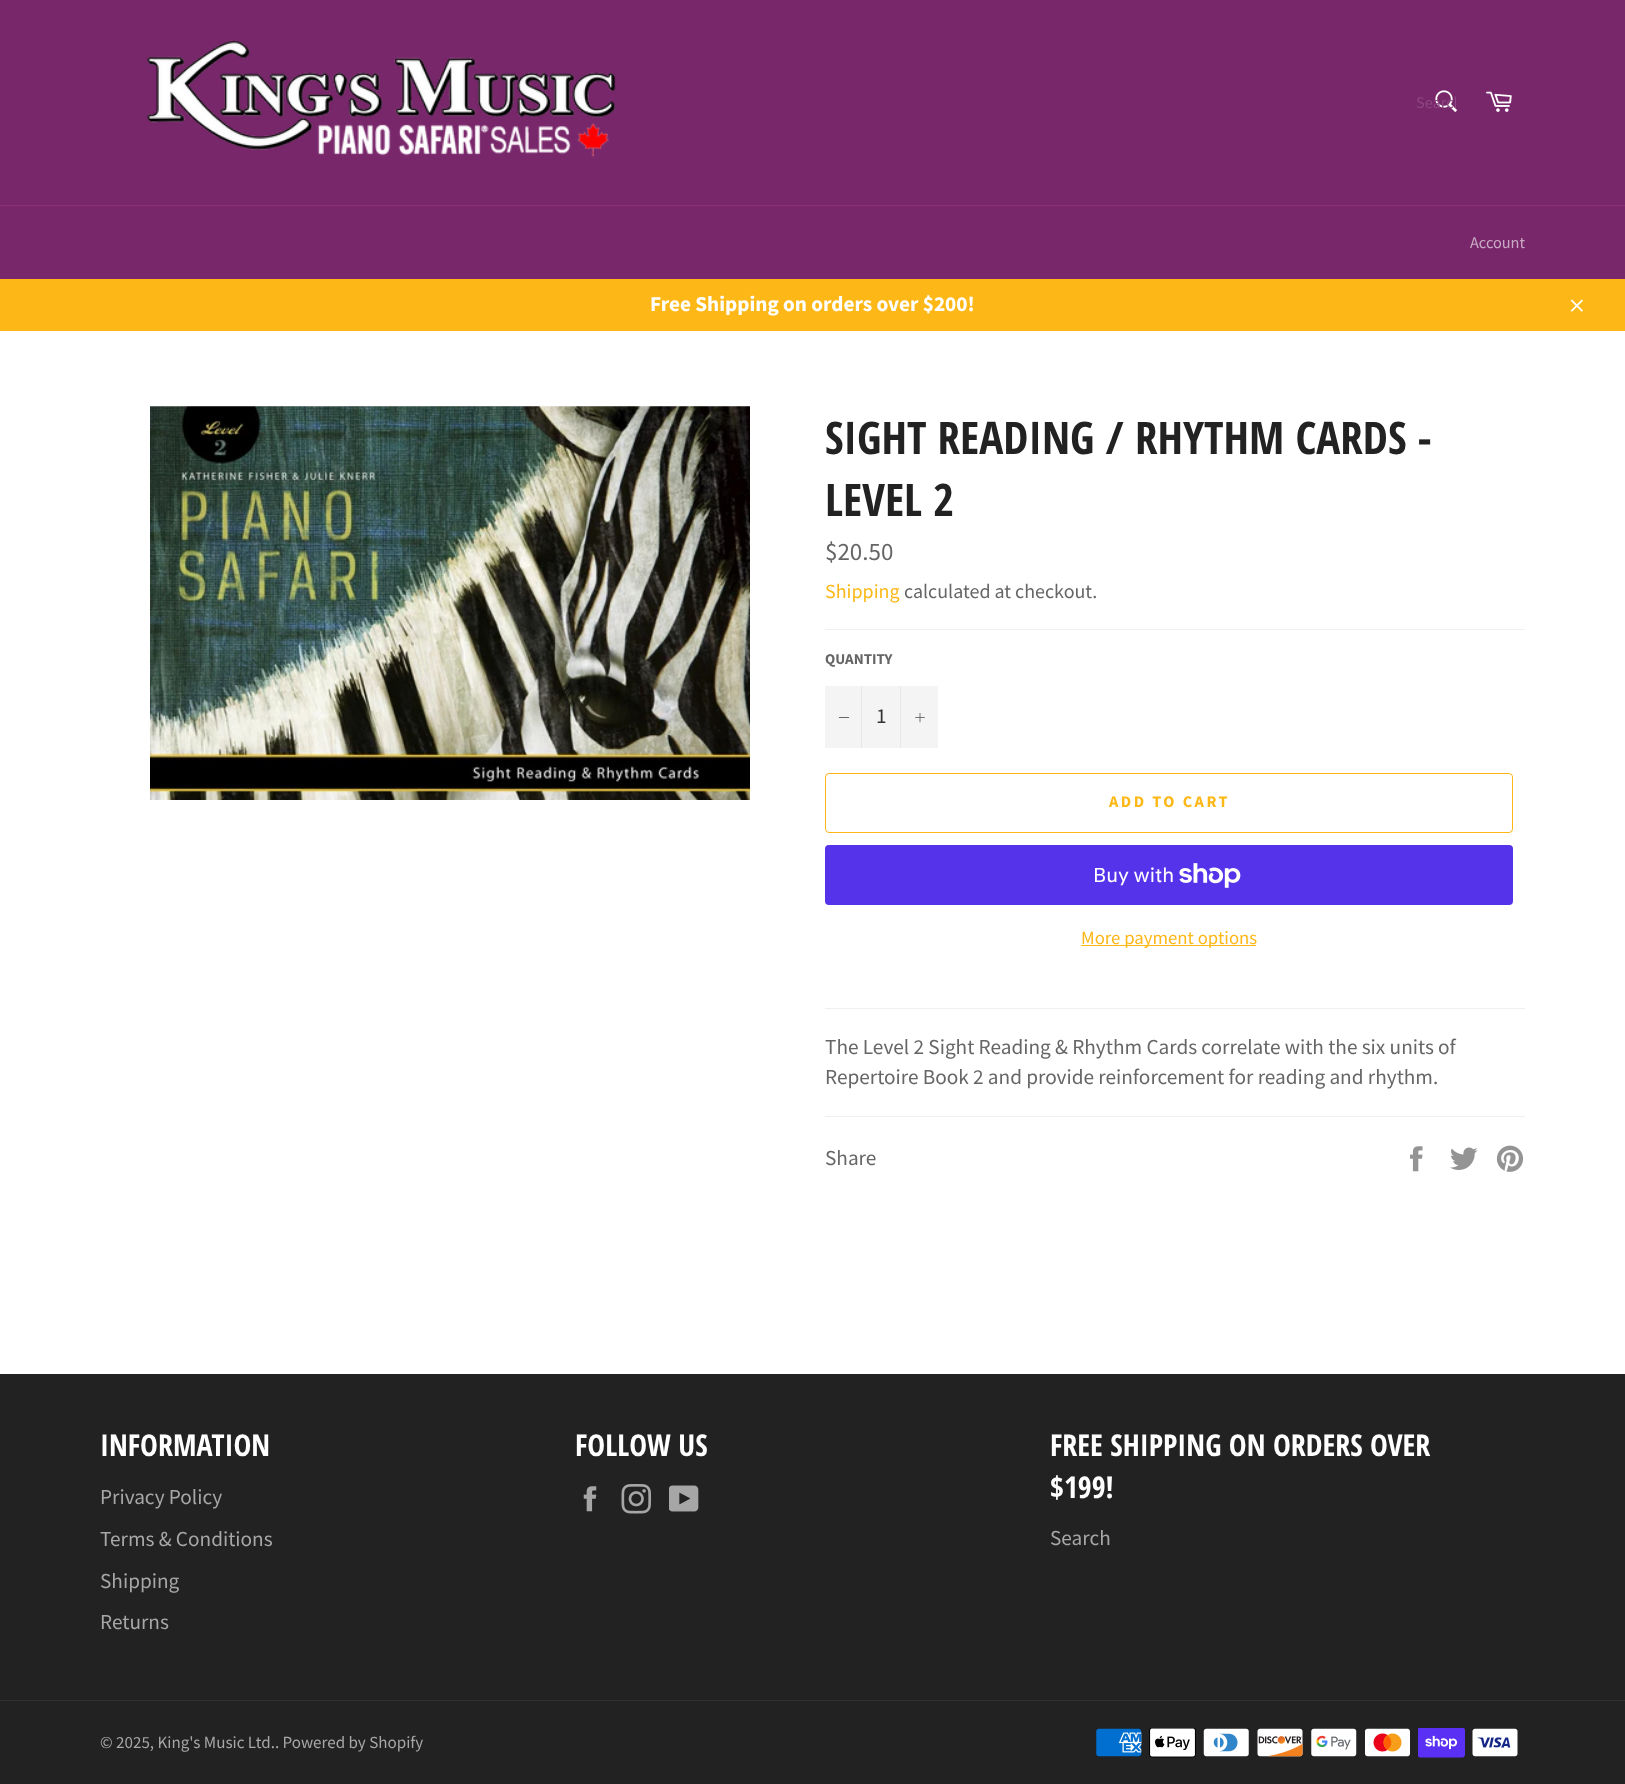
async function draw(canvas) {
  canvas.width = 1625
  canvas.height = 1784
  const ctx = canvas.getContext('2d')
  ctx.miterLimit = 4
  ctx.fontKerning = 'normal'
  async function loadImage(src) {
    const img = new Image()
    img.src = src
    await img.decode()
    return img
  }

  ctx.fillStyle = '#222'
  ctx.fillRect(0, 0, 1625, 1784)
  ctx.fillStyle = '#79276b'
  ctx.fillRect(0, 0, 1625, 205)
  ctx.drawImage(await loadImage('image0.png'), 147, 40, 469, 117)
  ctx.drawImage(await loadImage('image1.png'), 1435, 90, 22, 22)
  ctx.save()
  ctx.beginPath()
  ctx.rect(1416, 93, 40, 21)
  ctx.clip()
  ctx.font = '16.25px Source Sans Pro'
  ctx.fillStyle = '#8c4680'
  ctx.fillText('Search', 1416, 108)
  ctx.restore()
  ctx.drawImage(await loadImage('image2.png'), 1486, 91, 26, 21)
  ctx.fillRect(0, 206, 1625, 73)
  ctx.fillStyle = '#8c2d7c'
  ctx.fillRect(0, 205, 1625, 1)
  ctx.font = '16.25px Source Sans Pro'
  ctx.fillStyle = '#c9a9c4'
  ctx.fillText('Account', 1470, 248)
  ctx.fillStyle = '#fdb817'
  ctx.fillRect(0, 279, 1625, 52)
  ctx.font = 'bold 21.25px Source Sans Pro'
  ctx.fillStyle = '#fff'
  ctx.fillText('Free Shipping on orders over $200!', 650, 311)
  ctx.drawImage(await loadImage('image3.png'), 1570, 299, 13, 13)
  ctx.fillRect(0, 331, 1625, 1043)
  ctx.drawImage(await loadImage('image4.png'), 150, 406, 600, 394)
  ctx.font = 'bold 45px Open Sans Condensed'
  ctx.fillStyle = '#222'
  ctx.fillText('SIGHT READING / RHYTHM CARDS -', 825, 454)
  ctx.fillText('LEVEL 2', 825, 516)
  ctx.font = '25px Source Sans Pro'
  ctx.fillStyle = '#666'
  ctx.fillText('$20.50', 825, 560)
  ctx.font = '20px Source Sans Pro'
  ctx.fillStyle = '#fdb817'
  ctx.fillText('Shipping', 825, 598)
  ctx.fillStyle = '#666'
  ctx.fillText('calculated at checkout.', 904, 598)
  ctx.fillStyle = '#f0f0f0'
  ctx.fillRect(825, 629, 700, 1)
  ctx.font = 'bold 15px Source Sans Pro'
  ctx.fillStyle = '#666'
  ctx.fillText('QUANTITY', 825, 664)
  ctx.fillStyle = '#f4f4f4'
  ctx.fillRect(825, 686, 113, 62)
  ctx.fillStyle = '#e7e7e7'
  ctx.fillRect(861, 686, 1, 62)
  ctx.fillStyle = '#666'
  ctx.fillRect(839, 717, 10, 1)
  ctx.font = '21.25px Source Sans Pro'
  ctx.fillStyle = '#333'
  ctx.fillText('1', 876, 723)
  ctx.fillStyle = '#e7e7e7'
  ctx.fillRect(900, 686, 1, 62)
  ctx.drawImage(await loadImage('image5.png'), 915, 713, 10, 10)
  ctx.beginPath()
  ctx.roundRect(825.5, 773.5, 687, 59, 3.5)
  ctx.strokeStyle = '#fdb817'
  ctx.stroke()
  ctx.letterSpacing = '2.5px'
  ctx.font = 'bold 16.25px Source Sans Pro'
  ctx.fillStyle = '#fdb817'
  ctx.fillText('ADD TO CART', 1109, 807)
  ctx.fillStyle = '#5433eb'
  ctx.beginPath()
  ctx.roundRect(825, 845, 688, 60, 4)
  ctx.fill()
  ctx.letterSpacing = '0px'
  ctx.font = '20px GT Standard'
  ctx.fillStyle = '#fff'
  ctx.fillText('Buy with', 1093, 882)
  ctx.drawImage(await loadImage('image6.png'), 1179, 863, 62, 25)
  ctx.fillStyle = '#fdb817'
  ctx.fillRect(1081, 945, 175, 1)
  ctx.font = '18.75px Source Sans Pro'
  ctx.fillText('More payment options', 1081, 944)
  ctx.fillStyle = '#f0f0f0'
  ctx.fillRect(825, 1008, 700, 1)
  ctx.font = '21.25px Source Sans Pro'
  ctx.fillStyle = '#666'
  ctx.fillText('The Level 2 Sight Reading & Rhythm Cards correlate with the six units of', 825, 1054)
  ctx.fillText('Repertoire Book 2 and provide reinforcement for reading and rhythm.', 825, 1084)
  ctx.fillStyle = '#f0f0f0'
  ctx.fillRect(825, 1116, 700, 1)
  ctx.fillStyle = '#666'
  ctx.fillText('Share', 825, 1165)
  ctx.drawImage(await loadImage('image7.png'), 1410, 1146, 13, 26)
  ctx.drawImage(await loadImage('image8.png'), 1450, 1147, 28, 23)
  ctx.drawImage(await loadImage('image9.png'), 1496, 1145, 28, 27)
  ctx.font = 'bold 30px Open Sans Condensed'
  ctx.fillStyle = '#fff'
  ctx.fillText('INFORMATION', 100, 1456)
  ctx.font = '21.25px Source Sans Pro'
  ctx.fillStyle = '#a7a7a7'
  ctx.fillText('Privacy Policy', 100, 1504)
  ctx.fillText('Terms & Conditions', 100, 1546)
  ctx.fillText('Shipping', 100, 1588)
  ctx.fillText('Returns', 100, 1629)
  ctx.font = 'bold 30px Open Sans Condensed'
  ctx.fillStyle = '#fff'
  ctx.fillText('FOLLOW US', 575, 1456)
  ctx.drawImage(await loadImage('image10.png'), 583, 1486, 14, 26)
  ctx.drawImage(await loadImage('image11.png'), 621, 1484, 30, 30)
  ctx.drawImage(await loadImage('image12.png'), 669, 1485, 30, 27)
  ctx.fillText('FREE SHIPPING ON ORDERS OVER', 1050, 1456)
  ctx.fillText('$199!', 1050, 1498)
  ctx.font = '21.25px Source Sans Pro'
  ctx.fillStyle = '#a7a7a7'
  ctx.fillText('Search', 1050, 1545)
  ctx.fillStyle = '#2f2f2f'
  ctx.fillRect(0, 1700, 1625, 1)
  ctx.font = '17px Source Sans Pro'
  ctx.fillStyle = '#a7a7a7'
  ctx.fillText('© 2025, King\'s Music Ltd.. Powered by Shopify', 100, 1748)
  ctx.drawImage(await loadImage('image13.png'), 1096, 1728, 46, 29)
  ctx.drawImage(await loadImage('image14.png'), 1149, 1728, 47, 30)
  ctx.drawImage(await loadImage('image15.png'), 1203, 1728, 46, 29)
  ctx.drawImage(await loadImage('image16.png'), 1257, 1728, 46, 29)
  ctx.drawImage(await loadImage('image17.png'), 1311, 1728, 46, 29)
  ctx.drawImage(await loadImage('image18.png'), 1365, 1728, 45, 29)
  ctx.drawImage(await loadImage('image19.png'), 1418, 1728, 47, 30)
  ctx.drawImage(await loadImage('image20.png'), 1472, 1728, 46, 29)
}

draw(document.querySelector('canvas'))
